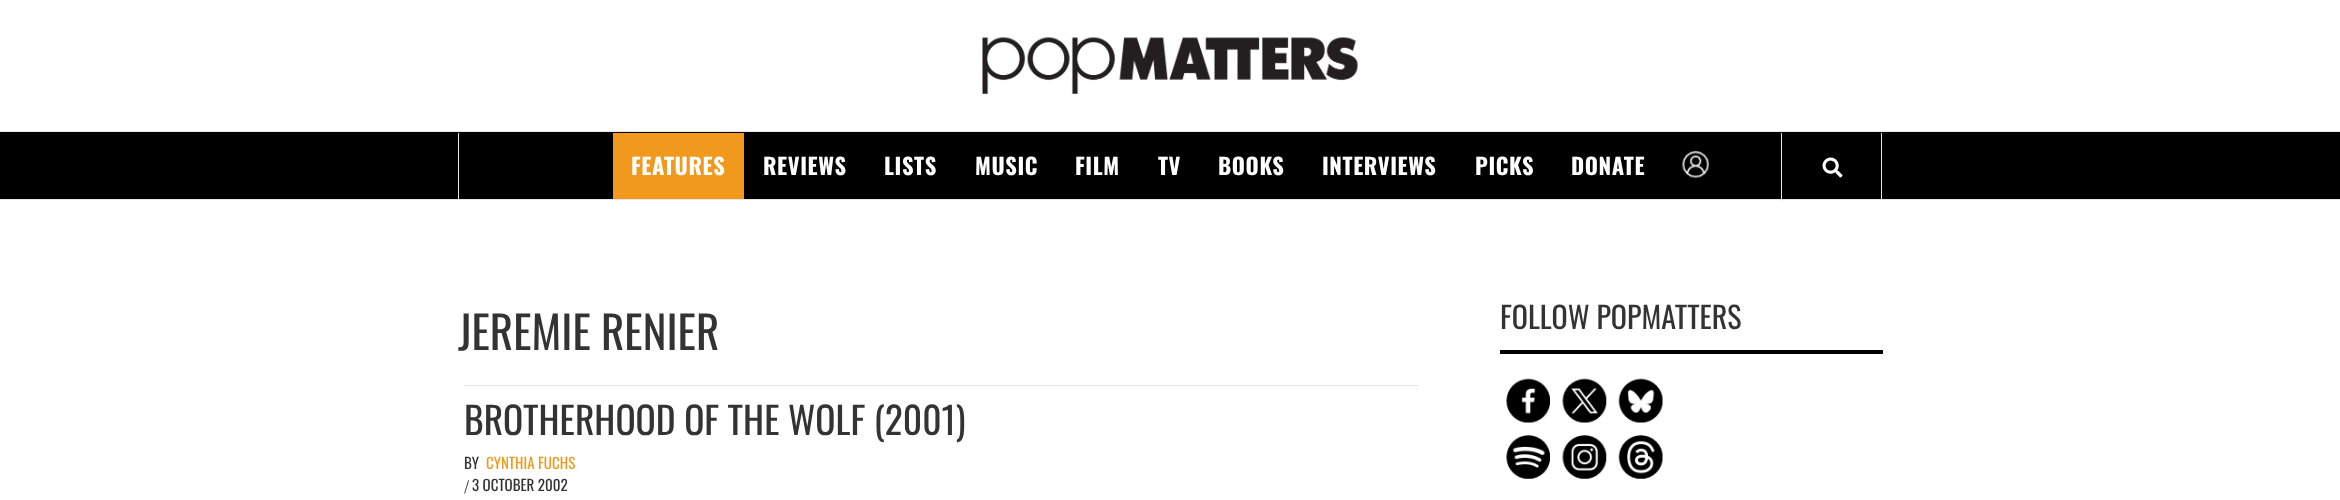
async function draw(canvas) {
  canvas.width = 2340
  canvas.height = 500
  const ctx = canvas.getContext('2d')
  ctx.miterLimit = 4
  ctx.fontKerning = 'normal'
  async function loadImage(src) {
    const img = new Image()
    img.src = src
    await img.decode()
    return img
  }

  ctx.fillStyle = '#fff'
  ctx.fillRect(0, 0, 2340, 500)
  ctx.drawImage(await loadImage('image0.png'), 982, 37, 376, 57)
  ctx.fillStyle = '#000'
  ctx.fillRect(0, 132, 2340, 67)
  ctx.fillStyle = '#e8e8e8'
  ctx.fillRect(0, 131, 2340, 1)
  ctx.fillRect(0, 199, 2340, 1)
  ctx.fillRect(1881, 133, 1, 66)
  ctx.fillRect(458, 133, 1, 66)
  ctx.fillStyle = '#f0991d'
  ctx.fillRect(613, 133, 131, 66)
  ctx.letterSpacing = '0.6px'
  ctx.font = 'bold 22.5px Oswald'
  ctx.fillStyle = '#fff'
  ctx.fillText('FEATURES', 631, 175)
  ctx.fillText('REVIEWS', 763, 175)
  ctx.fillText('LISTS', 884, 175)
  ctx.fillText('MUSIC', 975, 175)
  ctx.fillText('FILM', 1075, 175)
  ctx.fillText('TV', 1158, 175)
  ctx.fillText('BOOKS', 1218, 175)
  ctx.fillText('INTERVIEWS', 1322, 175)
  ctx.fillText('PICKS', 1475, 175)
  ctx.fillText('DONATE', 1571, 175)
  ctx.drawImage(await loadImage('image1.png'), 1682, 151, 27, 27)
  ctx.fillStyle = '#e8e8e8'
  ctx.fillRect(1781, 133, 1, 68)
  ctx.drawImage(await loadImage('image2.png'), 1822, 157, 21, 21)
  ctx.letterSpacing = '0px'
  ctx.font = '45px Oswald'
  ctx.fillStyle = '#333'
  ctx.fillText('JEREMIE RENIER', 458, 350)
  ctx.fillStyle = '#e8e8e8'
  ctx.fillRect(464, 385, 955, 1)
  ctx.font = '37.5px Oswald'
  ctx.fillStyle = '#333'
  ctx.fillText('BROTHERHOOD OF THE WOLF (2001)', 464, 435)
  ctx.font = '15px Oswald'
  ctx.fillText('BY', 464, 469)
  ctx.fillStyle = '#f0991d'
  ctx.fillText('CYNTHIA FUCHS', 486, 469)
  ctx.font = '15px Source Sans Pro'
  ctx.fillStyle = '#333'
  ctx.fillText('/', 464, 491)
  ctx.font = '15px Oswald'
  ctx.fillText('3 OCTOBER 2002', 472, 491)
  ctx.fillStyle = '#000'
  ctx.fillRect(1500, 350, 383, 4)
  ctx.font = '30px Oswald'
  ctx.fillStyle = '#333'
  ctx.fillText('FOLLOW POPMATTERS', 1500, 329)
  ctx.drawImage(await loadImage('image3.png'), 1506, 378, 44, 45)
  ctx.drawImage(await loadImage('image4.png'), 1562, 378, 45, 45)
  ctx.drawImage(await loadImage('image5.png'), 1618, 378, 45, 45)
  ctx.drawImage(await loadImage('image6.png'), 1506, 435, 44, 44)
  ctx.drawImage(await loadImage('image7.png'), 1562, 435, 45, 44)
  ctx.drawImage(await loadImage('image8.png'), 1618, 435, 45, 44)
}

draw(document.querySelector('canvas'))
